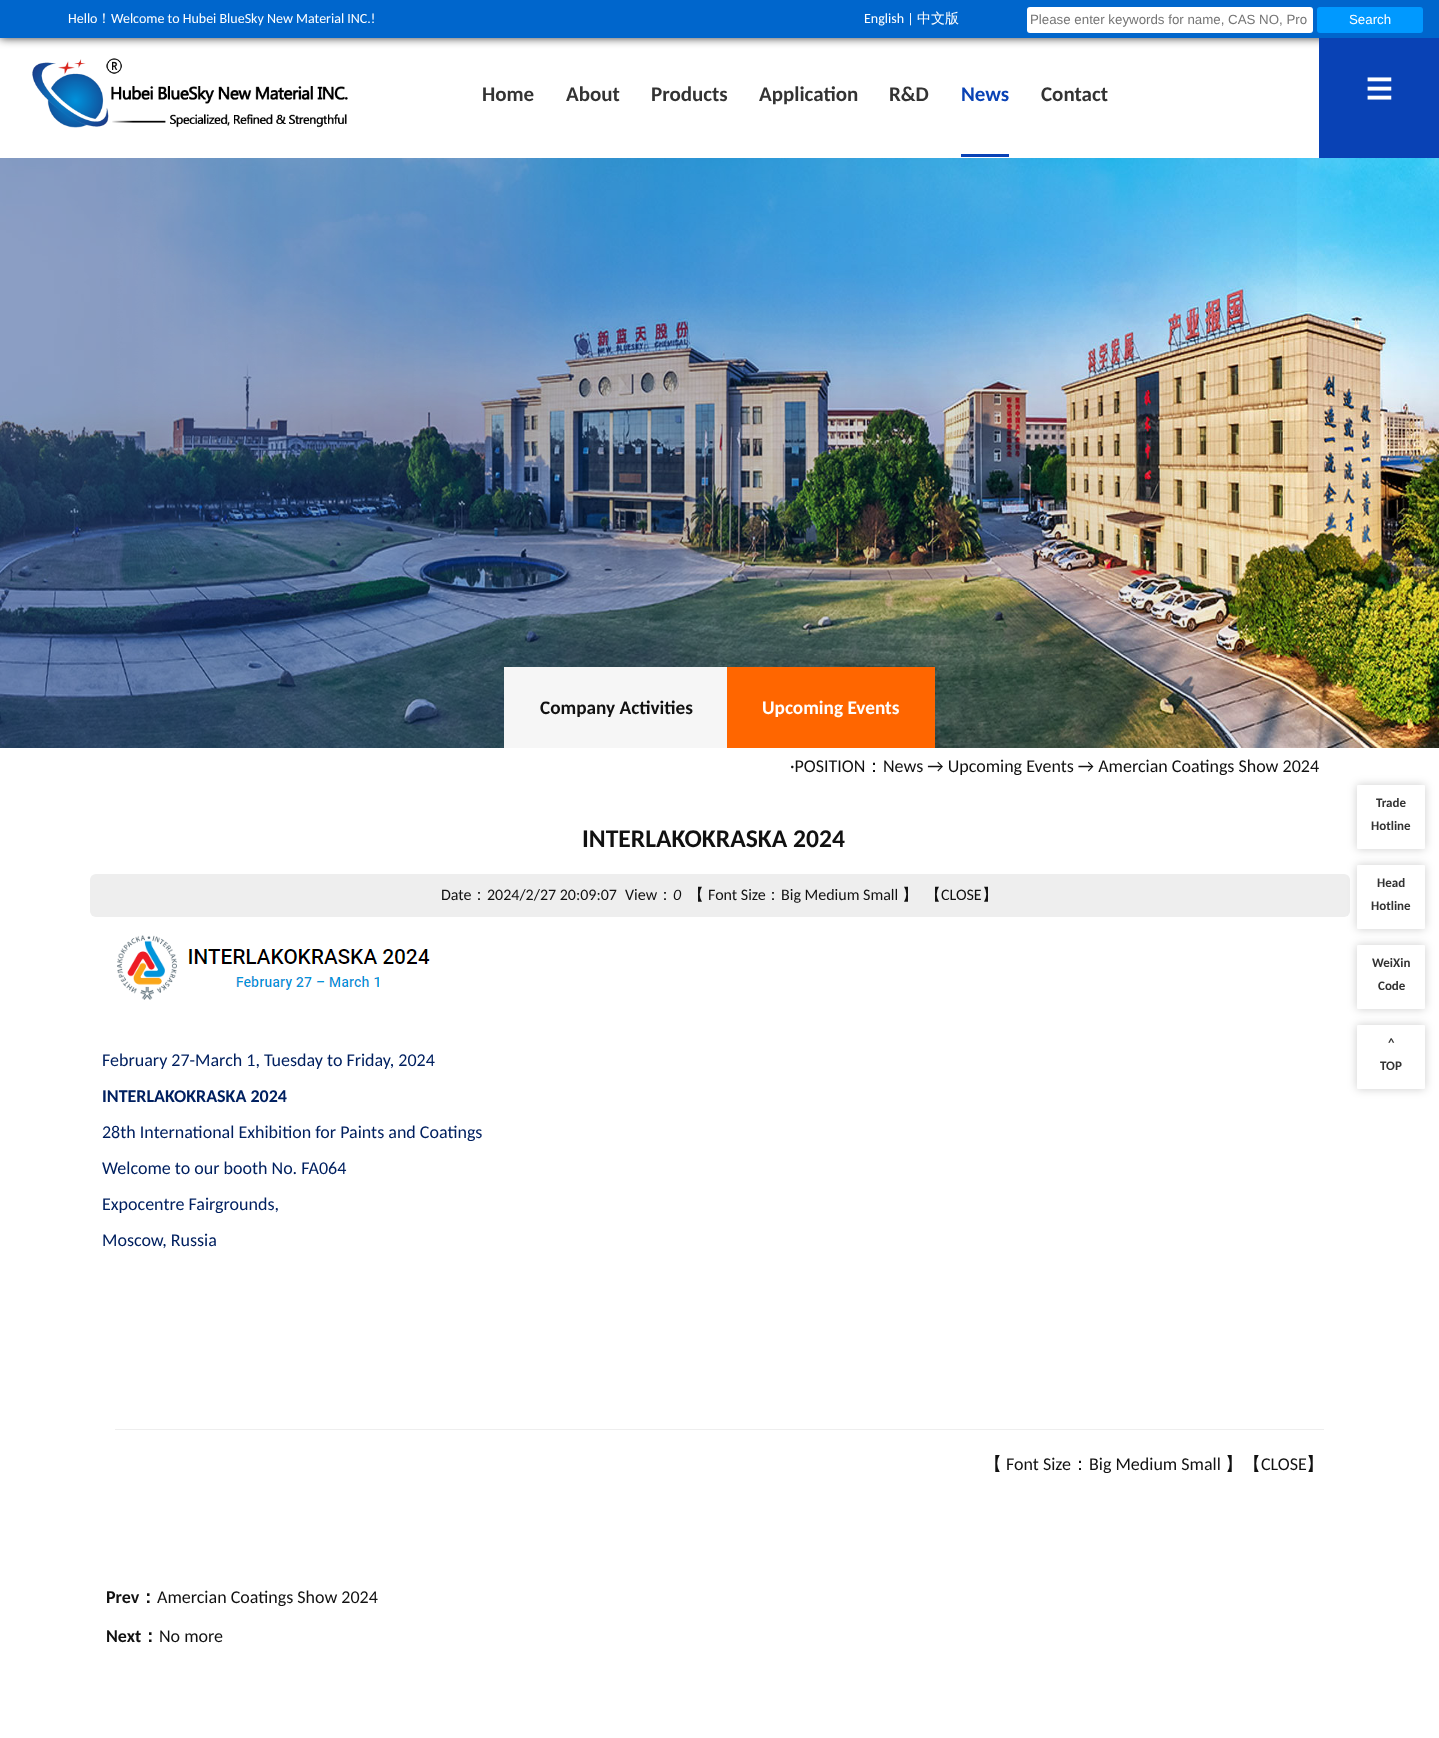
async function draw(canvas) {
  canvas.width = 1439
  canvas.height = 1738
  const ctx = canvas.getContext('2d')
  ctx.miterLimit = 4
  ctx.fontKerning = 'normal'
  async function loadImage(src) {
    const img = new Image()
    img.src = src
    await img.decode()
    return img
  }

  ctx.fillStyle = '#fff'
  ctx.fillRect(0, 0, 1439, 1738)
  ctx.fillStyle = '#000000cc'
  ctx.filter = 'blur(5px)'
  ctx.beginPath()
  ctx.rect(0, 0, 1439, 38)
  ctx.fill()
  ctx.filter = 'none'
  ctx.fillStyle = '#06c'
  ctx.fillRect(0, 0, 1439, 38)
  ctx.font = '14px Carlito'
  ctx.fillStyle = '#fff'
  ctx.fillText('Hello', 68, 23)
  ctx.font = '500 14px WenQuanYi Zen Hei'
  ctx.fillText('！', 97, 23)
  ctx.font = '14px Carlito'
  ctx.fillText('Welcome to Hubei BlueSky New Material INC.!', 111, 23)
  ctx.fillText('English |', 864, 23)
  ctx.font = '500 14px WenQuanYi Zen Hei'
  ctx.fillText('中文版', 917, 23)
  ctx.beginPath()
  ctx.roundRect(1027, 7, 286, 26, 3)
  ctx.fill()
  ctx.font = '13.3px Liberation Sans'
  ctx.fillStyle = '#757575'
  ctx.fillText('Please enter keywords for name, CAS NO, Pro', 1030, 24)
  ctx.fillStyle = '#09f'
  ctx.beginPath()
  ctx.roundRect(1317, 7, 106, 26, 3)
  ctx.fill()
  ctx.fillStyle = '#fff'
  ctx.fillText('Search', 1349, 24)
  ctx.drawImage(await loadImage('image0.png'), 32, 58, 316, 70)
  ctx.font = 'bold 21px Carlito'
  ctx.fillStyle = '#333'
  ctx.fillText('Home', 482, 101)
  ctx.fillText('About', 566, 101)
  ctx.fillText('Products', 651, 101)
  ctx.fillText('Application', 759, 101)
  ctx.fillText('R&D', 889, 101)
  ctx.fillStyle = '#0942b5'
  ctx.fillRect(961, 154, 48, 3)
  ctx.fillText('News', 961, 101)
  ctx.fillStyle = '#333'
  ctx.fillText('Contact', 1041, 101)
  ctx.fillStyle = '#0942b5'
  ctx.fillRect(1319, 38, 120, 120)
  ctx.font = '58px Carlito'
  ctx.fillStyle = '#fff'
  ctx.fillText('≡', 1365, 107)
  ctx.drawImage(await loadImage('image1.png'), 0, 158, 1439, 590)
  ctx.drawImage(await loadImage('image2.png'), 0, 158, 1297, 590)
  ctx.fillStyle = '#f6f6f6'
  ctx.fillRect(504, 667, 223, 81)
  ctx.font = 'bold 19.25px Carlito'
  ctx.fillStyle = '#111'
  ctx.fillText('Company Activities', 540, 714)
  ctx.fillStyle = '#f60'
  ctx.fillRect(727, 667, 208, 81)
  ctx.fillStyle = '#fff'
  ctx.fillText('Upcoming Events', 762, 714)
  ctx.font = '18px Carlito'
  ctx.fillStyle = '#111'
  ctx.fillText('·POSITION', 790, 772)
  ctx.font = '500 18px WenQuanYi Zen Hei'
  ctx.fillText('：', 865, 772)
  ctx.font = '18px Carlito'
  ctx.fillText('News → Upcoming Events → Amercian Coatings Show 2024', 883, 772)
  ctx.font = 'bold 25.6px Carlito'
  ctx.fillText('INTERLAKOKRASKA 2024', 582, 847)
  ctx.fillStyle = '#eee'
  ctx.beginPath()
  ctx.roundRect(90, 874, 1260, 43, 6)
  ctx.fill()
  ctx.font = '16px Carlito'
  ctx.fillStyle = '#111'
  ctx.fillText('Date', 441, 900)
  ctx.font = '500 16px WenQuanYi Zen Hei'
  ctx.fillText('：', 471, 900)
  ctx.font = '16px Carlito'
  ctx.fillText('2024/2/27 20:09:07', 487, 900)
  ctx.fillText('View', 625, 900)
  ctx.font = '500 16px WenQuanYi Zen Hei'
  ctx.fillText('：', 657, 900)
  ctx.font = 'italic 16px Carlito'
  ctx.fillText('0', 673, 900)
  ctx.font = '500 16px WenQuanYi Zen Hei'
  ctx.fillText('【', 688, 900)
  ctx.font = '16px Carlito'
  ctx.fillText('Font Size', 708, 900)
  ctx.font = '500 16px WenQuanYi Zen Hei'
  ctx.fillText('：', 765, 900)
  ctx.font = '16px Carlito'
  ctx.fillText('Big Medium Small', 781, 900)
  ctx.font = '500 16px WenQuanYi Zen Hei'
  ctx.fillText('】', 902, 900)
  ctx.fillText('【', 925, 900)
  ctx.font = '16px Carlito'
  ctx.fillText('CLOSE', 941, 900)
  ctx.font = '500 16px WenQuanYi Zen Hei'
  ctx.fillText('】', 982, 900)
  ctx.drawImage(await loadImage('image3.png'), 117, 935, 313, 65)
  ctx.font = '18px Carlito'
  ctx.fillStyle = '#002060'
  ctx.fillText('February 27-March 1, Tuesday to Friday, 2024', 102, 1066)
  ctx.font = 'bold 18px Carlito'
  ctx.fillText('INTERLAKOKRASKA 2024', 102, 1102)
  ctx.font = '18px Carlito'
  ctx.fillText('28th International Exhibition for Paints and Coatings', 102, 1138)
  ctx.fillText('Welcome to our booth No. FA064', 102, 1174)
  ctx.fillText('Expocentre Fairgrounds,', 102, 1210)
  ctx.fillText('Moscow, Russia', 102, 1246)
  ctx.fillStyle = '#eee'
  ctx.fillRect(115, 1429, 1209, 1)
  ctx.font = '500 18px WenQuanYi Zen Hei'
  ctx.fillStyle = '#111'
  ctx.fillText('【', 984, 1470)
  ctx.font = '18px Carlito'
  ctx.fillText('Font Size', 1006, 1470)
  ctx.font = '500 18px WenQuanYi Zen Hei'
  ctx.fillText('：', 1071, 1470)
  ctx.font = '18px Carlito'
  ctx.fillText('Big Medium Small', 1089, 1470)
  ctx.font = '500 18px WenQuanYi Zen Hei'
  ctx.fillText('】【', 1225, 1470)
  ctx.font = '18px Carlito'
  ctx.fillText('CLOSE', 1261, 1470)
  ctx.font = '500 18px WenQuanYi Zen Hei'
  ctx.fillText('】', 1306, 1470)
  ctx.font = 'bold 18px Carlito'
  ctx.fillText('Prev', 106, 1603)
  ctx.font = 'bold 18px WenQuanYi Zen Hei'
  ctx.fillText('：', 139, 1603)
  ctx.font = '18px Carlito'
  ctx.fillText('Amercian Coatings Show 2024', 157, 1603)
  ctx.font = 'bold 18px Carlito'
  ctx.fillText('Next', 106, 1642)
  ctx.font = 'bold 18px WenQuanYi Zen Hei'
  ctx.fillText('：', 141, 1642)
  ctx.font = '18px Carlito'
  ctx.fillText('No more', 159, 1642)
  ctx.fillStyle = '#00000033'
  ctx.filter = 'blur(5px)'
  ctx.beginPath()
  ctx.roundRect(1357, 785, 68, 64, 1)
  ctx.fill()
  ctx.filter = 'none'
  ctx.fillStyle = '#fff'
  ctx.beginPath()
  ctx.roundRect(1357, 785, 68, 64, 1)
  ctx.fill()
  ctx.font = 'bold 13px Carlito'
  ctx.fillStyle = '#333'
  ctx.fillText('Trade', 1376, 807)
  ctx.fillText('Hotline', 1371, 830)
  ctx.fillStyle = '#00000033'
  ctx.filter = 'blur(5px)'
  ctx.beginPath()
  ctx.roundRect(1357, 865, 68, 64, 1)
  ctx.fill()
  ctx.filter = 'none'
  ctx.fillStyle = '#fff'
  ctx.beginPath()
  ctx.roundRect(1357, 865, 68, 64, 1)
  ctx.fill()
  ctx.fillStyle = '#333'
  ctx.fillText('Head', 1377, 887)
  ctx.fillText('Hotline', 1371, 910)
  ctx.fillStyle = '#00000033'
  ctx.filter = 'blur(5px)'
  ctx.beginPath()
  ctx.roundRect(1357, 945, 68, 64, 1)
  ctx.fill()
  ctx.filter = 'none'
  ctx.fillStyle = '#fff'
  ctx.beginPath()
  ctx.roundRect(1357, 945, 68, 64, 1)
  ctx.fill()
  ctx.fillStyle = '#333'
  ctx.fillText('WeiXin', 1372, 967)
  ctx.fillText('Code', 1378, 990)
  ctx.fillStyle = '#00000033'
  ctx.filter = 'blur(5px)'
  ctx.beginPath()
  ctx.roundRect(1357, 1025, 68, 64, 1)
  ctx.fill()
  ctx.filter = 'none'
  ctx.fillStyle = '#fff'
  ctx.beginPath()
  ctx.roundRect(1357, 1025, 68, 64, 1)
  ctx.fill()
  ctx.fillStyle = '#333'
  ctx.fillText('^', 1388, 1047)
  ctx.fillText('TOP', 1380, 1070)
}

draw(document.querySelector('canvas'))
